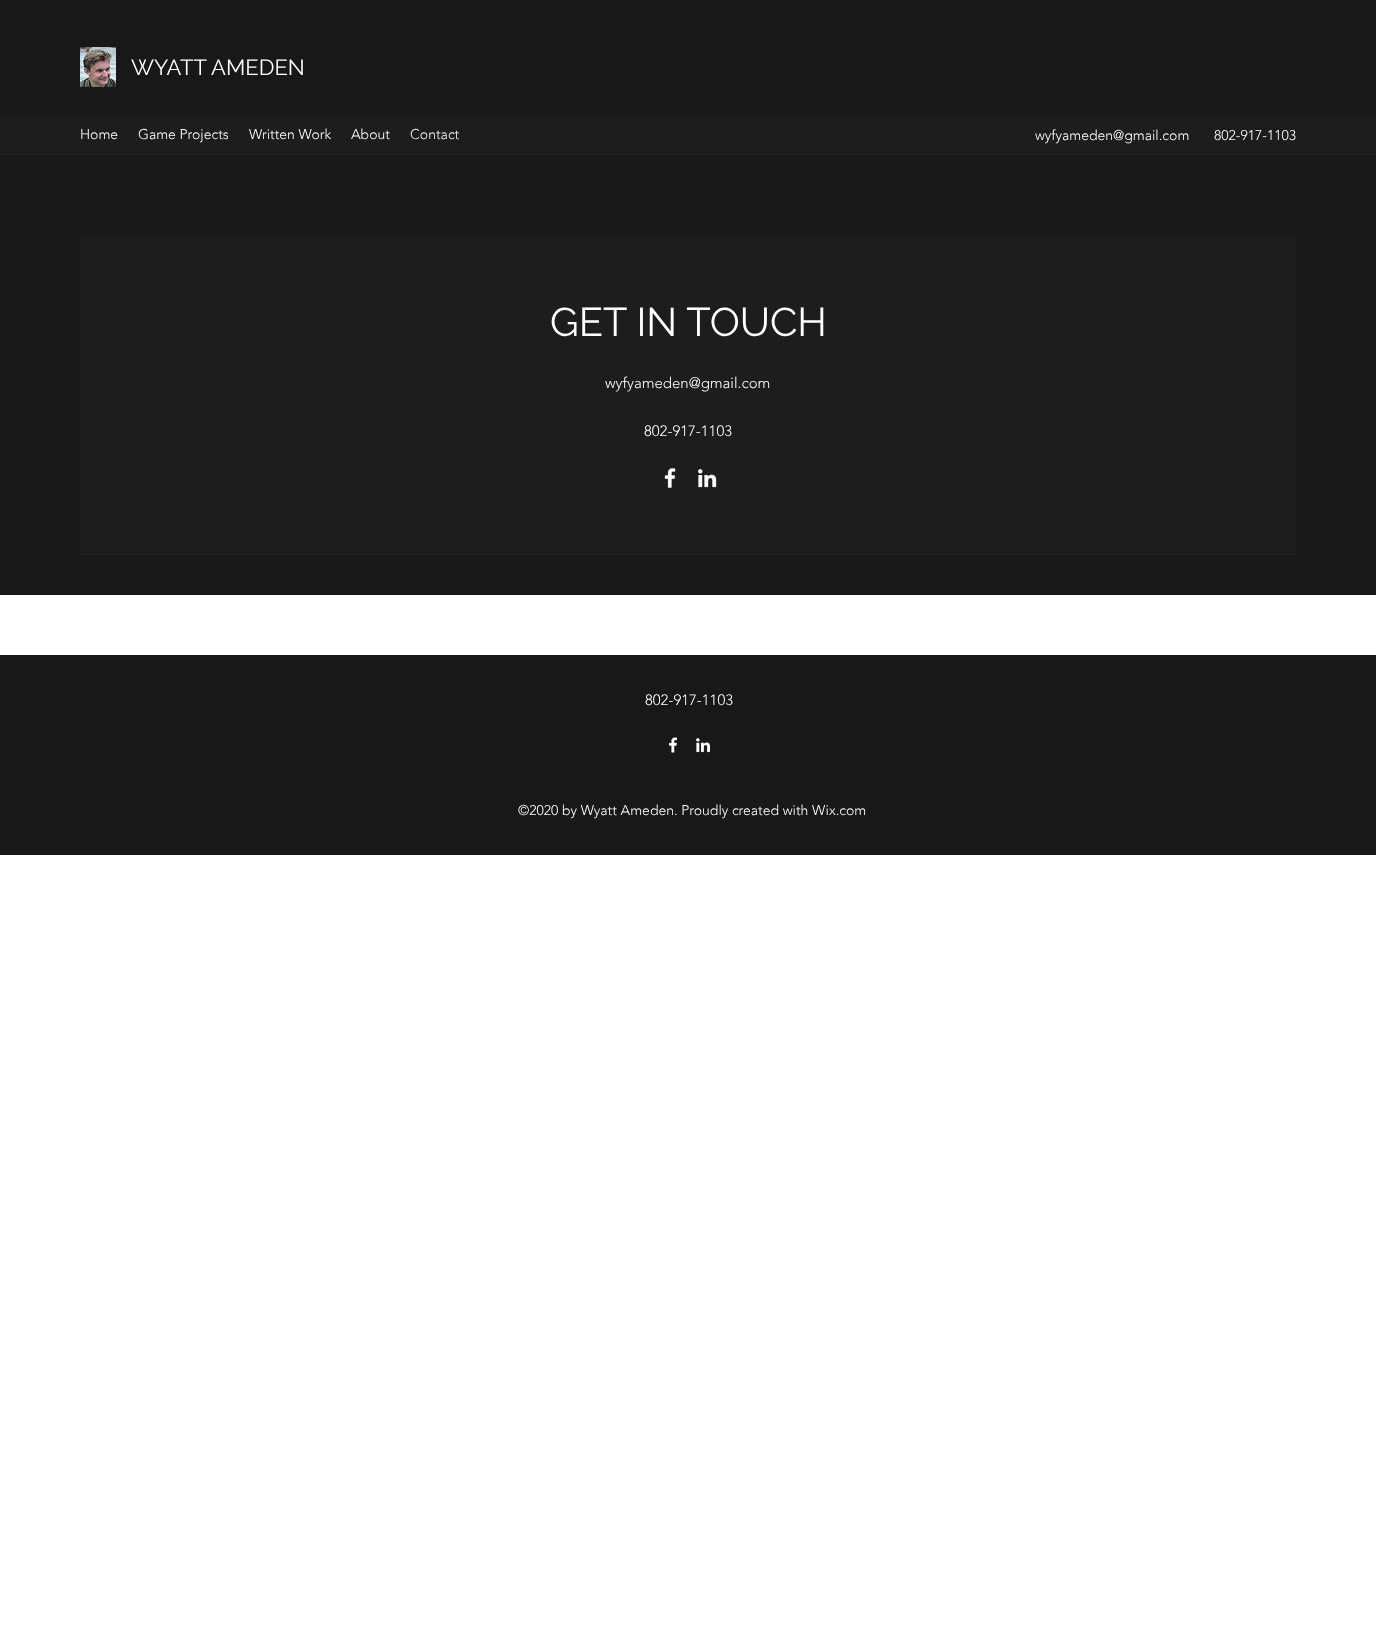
async function draw(canvas) {
  canvas.width = 1376
  canvas.height = 1633
  const ctx = canvas.getContext('2d')
  ctx.miterLimit = 4
  ctx.fontKerning = 'normal'
  async function loadImage(src) {
    const img = new Image()
    img.src = src
    await img.decode()
    return img
  }

  ctx.fillStyle = '#fff'
  ctx.fillRect(0, 0, 1376, 1633)
  ctx.fillStyle = '#181818'
  ctx.fillRect(0, 0, 1376, 115)
  ctx.drawImage(await loadImage('image0.png'), 80, 47, 36, 40)
  ctx.font = '22px Raleway'
  ctx.fillStyle = '#fff'
  ctx.fillText('WYATT AMEDEN', 131, 75)
  ctx.fillStyle = '#1d1d1d'
  ctx.fillRect(0, 115, 1376, 40)
  ctx.font = '300 14px "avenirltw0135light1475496"'
  ctx.fillStyle = '#fff'
  ctx.fillText('Home', 80, 139)
  ctx.fillText('Game Projects', 138, 139)
  ctx.fillText('Written Work', 249, 139)
  ctx.fillText('About', 351, 139)
  ctx.fillStyle = '#f5f5f5'
  ctx.fillText('Contact', 410, 139)
  ctx.fillStyle = '#fff'
  ctx.fillText('wyfyameden@gmail.com', 1035, 140)
  ctx.fillText('802-917-1103', 1214, 140)
  ctx.fillStyle = '#181818'
  ctx.fillRect(0, 155, 1376, 440)
  ctx.fillStyle = '#1d1d1d'
  ctx.fillRect(80, 235, 1216, 320)
  ctx.font = '40px Raleway'
  ctx.fillStyle = '#fff'
  ctx.fillText('GET IN TOUCH', 550, 336)
  ctx.font = '300 15px "avenirltw0135light1475496"'
  ctx.fillText('wyfyameden@gmail.com', 605, 388)
  ctx.fillText('802-917-1103', 644, 436)
  ctx.drawImage(await loadImage('image1.png'), 664, 468, 12, 20)
  ctx.drawImage(await loadImage('image2.png'), 698, 469, 19, 19)
  ctx.fillStyle = '#181818'
  ctx.fillRect(0, 655, 1376, 200)
  ctx.fillStyle = '#fff'
  ctx.fillText('802-917-1103', 645, 705)
  ctx.drawImage(await loadImage('image3.png'), 669, 737, 9, 16)
  ctx.drawImage(await loadImage('image4.png'), 696, 738, 15, 15)
  ctx.font = '300 14px "avenirltw0135light1475496"'
  ctx.fillText('©2020 by Wyatt Ameden. Proudly created with Wix.com', 518, 815)
}

draw(document.querySelector('canvas'))
